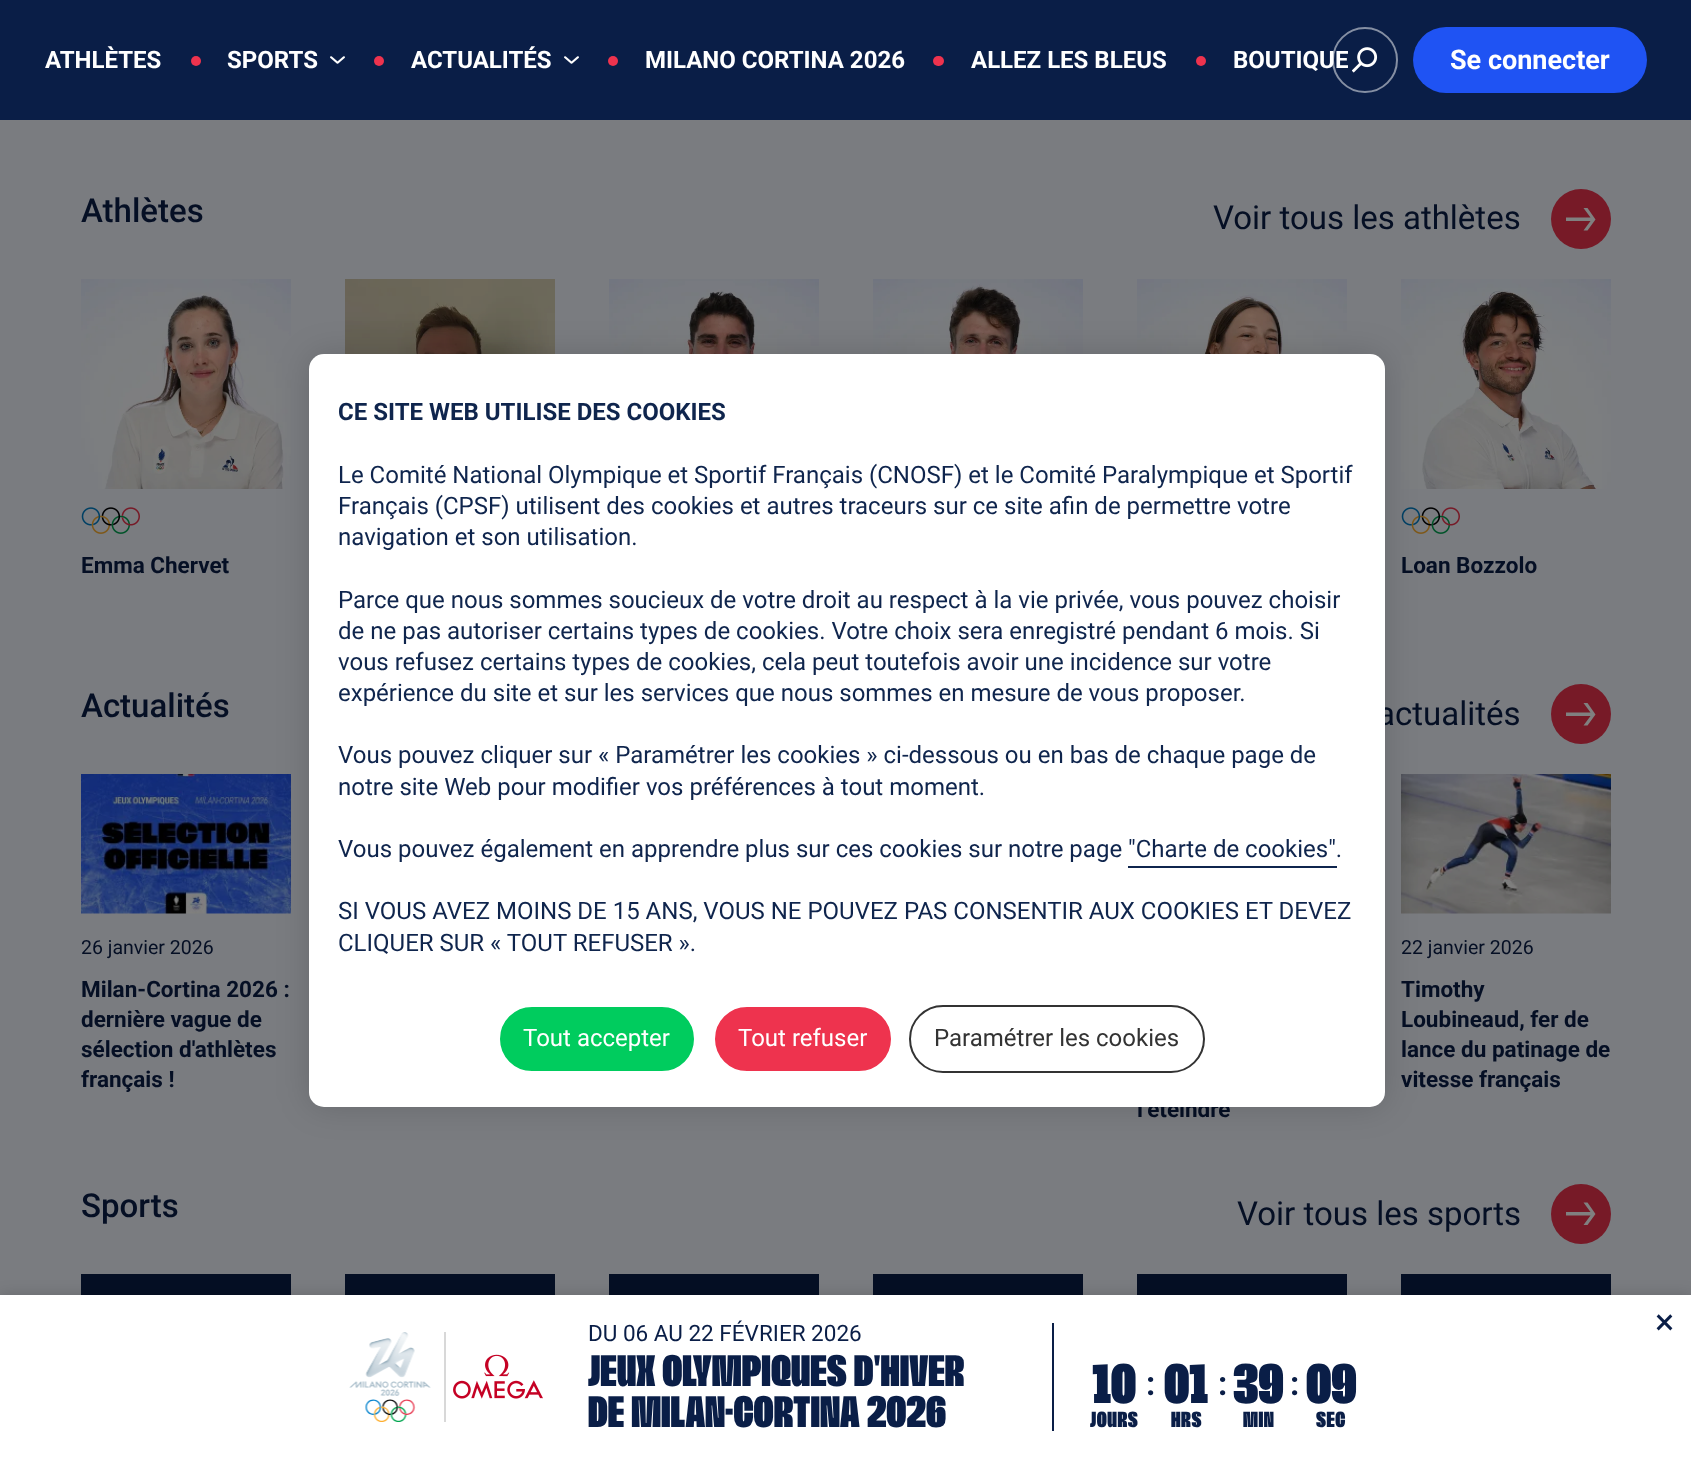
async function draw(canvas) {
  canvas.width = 1691
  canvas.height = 1459
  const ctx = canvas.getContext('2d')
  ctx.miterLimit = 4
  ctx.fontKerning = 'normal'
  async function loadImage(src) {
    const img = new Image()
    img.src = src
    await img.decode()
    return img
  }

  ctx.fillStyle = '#7a7c80'
  ctx.fillRect(0, 0, 1691, 1459)
  ctx.fillStyle = '#0a1e47'
  ctx.fillRect(0, 0, 1691, 120)
  ctx.font = 'bold 24px Roboto'
  ctx.fillStyle = '#fff'
  ctx.fillText('ATHLÈTES', 45, 68)
  ctx.fillStyle = '#ee334e'
  ctx.beginPath()
  ctx.arc(196, 61, 5, 0, 2 * Math.PI)
  ctx.fill()
  ctx.drawImage(await loadImage('image0.png'), 330, 56, 15, 8)
  ctx.fillStyle = '#fff'
  ctx.fillText('SPORTS', 227, 68)
  ctx.fillStyle = '#ee334e'
  ctx.beginPath()
  ctx.arc(379, 61, 5, 0, 2 * Math.PI)
  ctx.fill()
  ctx.drawImage(await loadImage('image0.png'), 564, 56, 15, 8)
  ctx.fillStyle = '#fff'
  ctx.fillText('ACTUALITÉS', 411, 68)
  ctx.fillStyle = '#ee334e'
  ctx.beginPath()
  ctx.arc(613, 61, 5, 0, 2 * Math.PI)
  ctx.fill()
  ctx.fillStyle = '#fff'
  ctx.fillText('MILANO CORTINA 2026', 645, 68)
  ctx.fillStyle = '#ee334e'
  ctx.beginPath()
  ctx.roundRect(933, 56, 11, 10, 5)
  ctx.fill()
  ctx.fillStyle = '#fff'
  ctx.fillText('ALLEZ LES BLEUS', 971, 68)
  ctx.fillStyle = '#ee334e'
  ctx.beginPath()
  ctx.arc(1201, 61, 5, 0, 2 * Math.PI)
  ctx.fill()
  ctx.fillStyle = '#fff'
  ctx.fillText('BOUTIQUE', 1233, 68)
  ctx.beginPath()
  ctx.arc(1365, 60, 32, 0, 2 * Math.PI)
  ctx.strokeStyle = '#ffffff80'
  ctx.lineWidth = 2
  ctx.stroke()
  ctx.drawImage(await loadImage('image1.png'), 1352, 47, 26, 26)
  ctx.fillStyle = '#1f53f3'
  ctx.beginPath()
  ctx.roundRect(1413, 27, 234, 66, 33)
  ctx.fill()
  ctx.font = 'bold 27px Roboto'
  ctx.fillStyle = '#fff'
  ctx.fillText('Se connecter', 1450, 69)
  ctx.font = '500 33px Roboto'
  ctx.fillStyle = '#050f24'
  ctx.fillText('Athlètes', 81, 222)
  ctx.font = '33px Roboto'
  ctx.fillText('Voir tous les athlètes', 1213, 229)
  ctx.fillStyle = '#771a27'
  ctx.beginPath()
  ctx.arc(1581, 219, 30, 0, 2 * Math.PI)
  ctx.fill()
  ctx.fillStyle = '#808080'
  ctx.beginPath()
  ctx.moveTo(1587.5, 208)
  ctx.lineTo(1595.5, 219.5)
  ctx.lineTo(1587.5, 230.5)
  ctx.lineTo(1583.5, 230.5)
  ctx.lineTo(1590.5, 221)
  ctx.lineTo(1566, 221)
  ctx.lineTo(1566, 217.5)
  ctx.lineTo(1590.5, 217.5)
  ctx.lineTo(1583.5, 208)
  ctx.closePath()
  ctx.fill('evenodd')
  ctx.drawImage(await loadImage('image2.png'), 345, 279, 210, 75)
  ctx.drawImage(await loadImage('image3.png'), 609, 279, 210, 75)
  ctx.drawImage(await loadImage('image4.png'), 873, 279, 210, 75)
  ctx.drawImage(await loadImage('image5.png'), 1137, 279, 210, 75)
  ctx.drawImage(await loadImage('image6.png'), 81, 279, 210, 210)
  ctx.drawImage(await loadImage('image7.png'), 81, 507, 59, 27)
  ctx.font = 'bold 22.5px Roboto'
  ctx.fillStyle = '#050f24'
  ctx.fillText('Emma Chervet', 81, 573)
  ctx.drawImage(await loadImage('image8.png'), 1401, 279, 210, 210)
  ctx.drawImage(await loadImage('image7.png'), 1401, 507, 59, 27)
  ctx.fillText('Loan Bozzolo', 1401, 573)
  ctx.font = '500 33px Roboto'
  ctx.fillText('Actualités', 81, 717)
  ctx.font = '33px Roboto'
  ctx.fillText('actualités', 1377, 725)
  ctx.fillStyle = '#771a27'
  ctx.beginPath()
  ctx.arc(1581, 714, 30, 0, 2 * Math.PI)
  ctx.fill()
  ctx.fillStyle = '#808080'
  ctx.beginPath()
  ctx.moveTo(1587.5, 703)
  ctx.lineTo(1595.5, 714.5)
  ctx.lineTo(1587.5, 725.5)
  ctx.lineTo(1583.5, 725.5)
  ctx.lineTo(1590.5, 716)
  ctx.lineTo(1566, 716)
  ctx.lineTo(1566, 712.5)
  ctx.lineTo(1590.5, 712.5)
  ctx.lineTo(1583.5, 703)
  ctx.closePath()
  ctx.fill('evenodd')
  ctx.drawImage(await loadImage('image9.png'), 81, 774, 210, 140)
  ctx.font = '19.5px Roboto'
  ctx.fillStyle = '#050f24'
  ctx.fillText('26 janvier 2026', 81, 954)
  ctx.font = 'bold 22.5px Roboto'
  ctx.fillText('Milan-Cortina 2026 :', 81, 997)
  ctx.fillText('dernière vague de', 81, 1027)
  ctx.fillText('sélection d\'athlètes', 81, 1057)
  ctx.fillText('français !', 81, 1087)
  ctx.drawImage(await loadImage('image10.png'), 1401, 774, 210, 140)
  ctx.font = '19.5px Roboto'
  ctx.fillText('22 janvier 2026', 1401, 954)
  ctx.font = 'bold 22.5px Roboto'
  ctx.fillText('Timothy', 1401, 997)
  ctx.fillText('Loubineaud, fer de', 1401, 1027)
  ctx.fillText('lance du patinage de', 1401, 1057)
  ctx.fillText('vitesse français', 1401, 1087)
  ctx.fillText('l’éteindre', 1137, 1117)
  ctx.font = '500 33px Roboto'
  ctx.fillText('Sports', 81, 1217)
  ctx.font = '33px Roboto'
  ctx.fillText('Voir tous les sports', 1237, 1225)
  ctx.fillStyle = '#771a27'
  ctx.beginPath()
  ctx.arc(1581, 1214, 30, 0, 2 * Math.PI)
  ctx.fill()
  ctx.fillStyle = '#808080'
  ctx.beginPath()
  ctx.moveTo(1587.5, 1202.5)
  ctx.lineTo(1595.5, 1214)
  ctx.lineTo(1587.5, 1225)
  ctx.lineTo(1583.5, 1225)
  ctx.lineTo(1590.5, 1215.5)
  ctx.lineTo(1566, 1215.5)
  ctx.lineTo(1566, 1212)
  ctx.lineTo(1590.5, 1212)
  ctx.lineTo(1583.5, 1202.5)
  ctx.closePath()
  ctx.fill('evenodd')
  ctx.fillStyle = '#050f24'
  ctx.fillRect(81, 1274, 210, 21)
  ctx.fillRect(345, 1274, 210, 21)
  ctx.fillRect(609, 1274, 210, 21)
  ctx.fillRect(873, 1274, 210, 21)
  ctx.fillRect(1137, 1274, 210, 21)
  ctx.fillRect(1401, 1274, 210, 21)
  ctx.fillStyle = '#00000026'
  ctx.filter = 'blur(7.5px)'
  ctx.beginPath()
  ctx.rect(0, 1295, 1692, 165)
  ctx.fill()
  ctx.filter = 'none'
  ctx.fillStyle = '#fff'
  ctx.fillRect(0, 1295, 1691, 164)
  ctx.drawImage(await loadImage('image11.png'), 349, 1332, 82, 90)
  ctx.fillStyle = '#d8d8d8'
  ctx.fillRect(444, 1332, 2, 90)
  ctx.drawImage(await loadImage('image12.png'), 453, 1354, 90, 45)
  ctx.fillStyle = '#0a1e47'
  ctx.fillRect(1052, 1323, 2, 108)
  ctx.font = '22.5px Roboto'
  ctx.fillText('DU 06 AU 22 FÉVRIER 2026', 588, 1341)
  ctx.font = 'bold 45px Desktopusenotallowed'
  ctx.fillText('JEUX OLYMPIQUES D\'HIVER', 588, 1386)
  ctx.fillText('DE MILAN-CORTINA 2026', 588, 1427)
  ctx.font = 'bold 57px Desktopusenotallowed'
  ctx.fillText('10', 1092, 1403)
  ctx.letterSpacing = '0.5px'
  ctx.font = 'bold 22.5px Desktopusenotallowed'
  ctx.fillText('Jours', 1090, 1427)
  ctx.letterSpacing = '0px'
  ctx.font = 'bold 33px Roboto'
  ctx.fillText(':', 1146, 1395)
  ctx.font = 'bold 57px Desktopusenotallowed'
  ctx.fillText('01', 1164, 1403)
  ctx.letterSpacing = '0.5px'
  ctx.font = 'bold 22.5px Desktopusenotallowed'
  ctx.fillText('Hrs', 1171, 1427)
  ctx.letterSpacing = '0px'
  ctx.font = 'bold 33px Roboto'
  ctx.fillText(':', 1218, 1395)
  ctx.font = 'bold 57px Desktopusenotallowed'
  ctx.fillText('39', 1233, 1403)
  ctx.letterSpacing = '0.5px'
  ctx.font = 'bold 22.5px Desktopusenotallowed'
  ctx.fillText('Min', 1243, 1427)
  ctx.letterSpacing = '0px'
  ctx.font = 'bold 33px Roboto'
  ctx.fillText(':', 1290, 1395)
  ctx.font = 'bold 57px Desktopusenotallowed'
  ctx.fillText('09', 1306, 1403)
  ctx.letterSpacing = '0.5px'
  ctx.font = 'bold 22.5px Desktopusenotallowed'
  ctx.fillText('Sec', 1316, 1427)
  ctx.letterSpacing = '0px'
  ctx.font = '36px Roboto'
  ctx.fillText('×', 1655, 1334)
  ctx.fillStyle = '#00000026'
  ctx.filter = 'blur(16.5px)'
  ctx.beginPath()
  ctx.roundRect(309, 354, 1076, 753, 15)
  ctx.fill()
  ctx.filter = 'none'
  ctx.fillStyle = '#fff'
  ctx.beginPath()
  ctx.roundRect(309, 354, 1076, 753, 15)
  ctx.fill()
  ctx.font = 'bold 24px Roboto'
  ctx.fillStyle = '#0f254d'
  ctx.fillText('CE SITE WEB UTILISE DES COOKIES', 338, 420)
  ctx.font = '24px Roboto'
  ctx.fillText('Le Comité National Olympique et Sportif Français (CNOSF) et le Comité Paralympique et Sportif', 338, 483)
  ctx.fillText('Français (CPSF) utilisent des cookies et autres traceurs sur ce site afin de permettre votre', 338, 514)
  ctx.fillText('navigation et son utilisation.', 338, 545)
  ctx.fillText('Parce que nous sommes soucieux de votre droit au respect à la vie privée, vous pouvez choisir', 338, 608)
  ctx.fillText('de ne pas autoriser certains types de cookies. Votre choix sera enregistré pendant 6 mois. Si', 338, 639)
  ctx.fillText('vous refusez certains types de cookies, cela peut toutefois avoir une incidence sur votre', 338, 670)
  ctx.fillText('expérience du site et sur les services que nous sommes en mesure de vous proposer.', 338, 701)
  ctx.fillText('Vous pouvez cliquer sur « Paramétrer les cookies » ci-dessous ou en bas de chaque page de', 338, 763)
  ctx.fillText('notre site Web pour modifier vos préférences à tout moment.', 338, 795)
  ctx.fillText('Vous pouvez également en apprendre plus sur ces cookies sur notre page "Charte de cookies".', 338, 857)
  ctx.fillRect(1128, 866, 209, 2)
  ctx.fillText('SI VOUS AVEZ MOINS DE 15 ANS, VOUS NE POUVEZ PAS CONSENTIR AUX COOKIES ET DEVEZ', 338, 919)
  ctx.fillText('CLIQUER SUR « TOUT REFUSER ».', 338, 951)
  ctx.fillStyle = '#00cc5e'
  ctx.beginPath()
  ctx.roundRect(499, 1006, 196, 66, 33)
  ctx.fill()
  ctx.strokeStyle = '#fff'
  ctx.stroke()
  ctx.fillStyle = '#fff'
  ctx.fillText('Tout accepter', 523, 1046)
  ctx.fillStyle = '#ee334e'
  ctx.beginPath()
  ctx.roundRect(714, 1006, 178, 66, 33)
  ctx.fill()
  ctx.stroke()
  ctx.fillStyle = '#fff'
  ctx.fillText('Tout refuser', 738, 1046)
  ctx.beginPath()
  ctx.roundRect(910, 1006, 294, 66, 33)
  ctx.strokeStyle = '#333'
  ctx.stroke()
  ctx.fillStyle = '#333'
  ctx.fillText('Paramétrer les cookies', 934, 1046)
}

draw(document.querySelector('canvas'))
